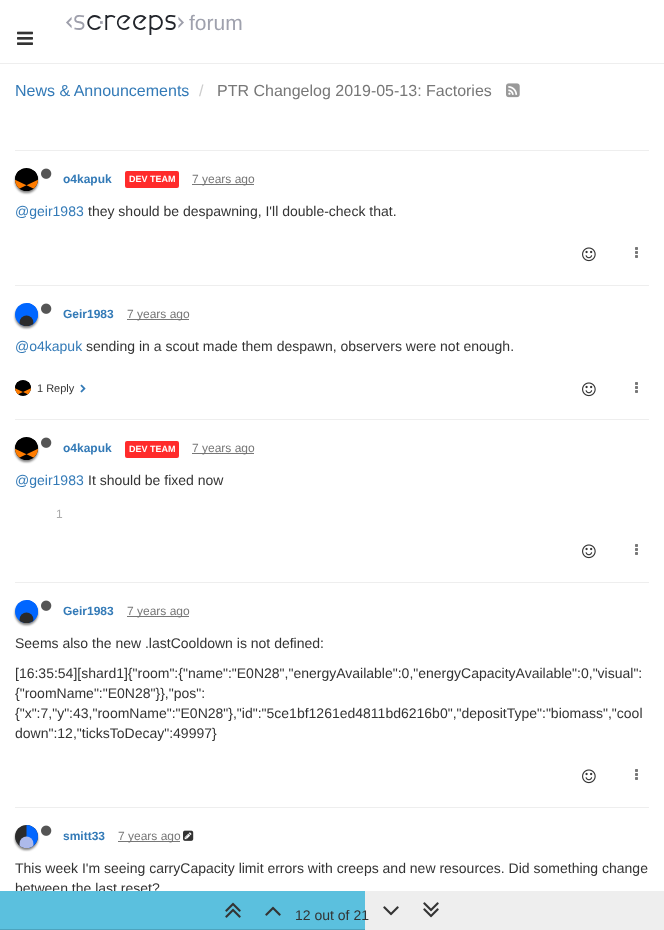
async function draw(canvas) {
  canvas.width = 664
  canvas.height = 930
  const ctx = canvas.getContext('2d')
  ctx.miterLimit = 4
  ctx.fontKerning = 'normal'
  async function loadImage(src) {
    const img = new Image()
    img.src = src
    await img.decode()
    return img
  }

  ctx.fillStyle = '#fff'
  ctx.fillRect(0, 0, 664, 930)
  ctx.fillStyle = '#eee'
  ctx.fillRect(0, 63, 664, 1)
  ctx.drawImage(await loadImage('image0.png'), 66, 15, 118, 20)
  ctx.font = '21px Liberation Sans'
  ctx.fillStyle = '#9fa1ad'
  ctx.fillText('forum', 189, 30)
  ctx.drawImage(await loadImage('image1.png'), 17, 31, 16, 14)
  ctx.font = '16px Liberation Sans'
  ctx.fillStyle = '#337ab7'
  ctx.fillText('News & Announcements', 15, 96)
  ctx.fillStyle = '#ccc'
  ctx.fillText('/', 199, 96)
  ctx.fillStyle = '#777'
  ctx.fillText('PTR Changelog 2019-05-13: Factories', 217, 96)
  ctx.drawImage(await loadImage('image2.png'), 506, 83, 14, 15)
  ctx.fillStyle = '#eee'
  ctx.fillRect(15, 150, 634, 1)
  ctx.fillStyle = '#00000080'
  ctx.filter = 'blur(1px)'
  ctx.beginPath()
  ctx.roundRect(15, 170, 23, 23, 11.5)
  ctx.fill()
  ctx.filter = 'none'
  ctx.drawImage(await loadImage('image3.png'), 15, 168, 23, 23)
  ctx.drawImage(await loadImage('image4.png'), 41, 168, 11, 11)
  ctx.font = 'bold 12px Liberation Sans'
  ctx.fillStyle = '#337ab7'
  ctx.fillText('o4kapuk', 63, 183)
  ctx.fillStyle = '#ff2b2b'
  ctx.beginPath()
  ctx.roundRect(125, 171, 54, 17, 2)
  ctx.fill()
  ctx.font = 'bold 9px Liberation Sans'
  ctx.fillStyle = '#fff'
  ctx.fillText('DEV TEAM', 129, 182)
  ctx.fillStyle = '#777'
  ctx.fillRect(192, 184, 62, 1)
  ctx.font = '12px Liberation Sans'
  ctx.fillText('7 years ago', 192, 183)
  ctx.font = '14px Liberation Sans'
  ctx.fillStyle = '#337ab7'
  ctx.fillText('@geir1983', 15, 216)
  ctx.fillStyle = '#333'
  ctx.fillText('they should be despawning, I\'ll double-check that.', 88, 216)
  ctx.drawImage(await loadImage('image5.png'), 582, 247, 14, 15)
  ctx.drawImage(await loadImage('image6.png'), 635, 247, 3, 11)
  ctx.fillStyle = '#eee'
  ctx.fillRect(15, 285, 634, 1)
  ctx.fillStyle = '#00000080'
  ctx.filter = 'blur(1px)'
  ctx.beginPath()
  ctx.roundRect(15, 305, 23, 23, 11.5)
  ctx.fill()
  ctx.filter = 'none'
  ctx.drawImage(await loadImage('image7.png'), 15, 303, 23, 23)
  ctx.drawImage(await loadImage('image4.png'), 41, 303, 11, 11)
  ctx.font = 'bold 12px Liberation Sans'
  ctx.fillStyle = '#337ab7'
  ctx.fillText('Geir1983', 63, 318)
  ctx.fillStyle = '#777'
  ctx.fillRect(127, 319, 62, 1)
  ctx.font = '12px Liberation Sans'
  ctx.fillText('7 years ago', 127, 318)
  ctx.font = '14px Liberation Sans'
  ctx.fillStyle = '#337ab7'
  ctx.fillText('@o4kapuk', 15, 351)
  ctx.fillStyle = '#333'
  ctx.fillText('sending in a scout made them despawn, observers were not enough.', 86, 351)
  ctx.drawImage(await loadImage('image8.png'), 15, 380, 16, 16)
  ctx.font = '11px Liberation Sans'
  ctx.fillText('1 Reply', 37, 392)
  ctx.drawImage(await loadImage('image9.png'), 80, 384, 6, 9)
  ctx.drawImage(await loadImage('image5.png'), 582, 382, 14, 15)
  ctx.drawImage(await loadImage('image6.png'), 635, 382, 3, 11)
  ctx.fillStyle = '#eee'
  ctx.fillRect(15, 419, 634, 1)
  ctx.fillStyle = '#00000080'
  ctx.filter = 'blur(1px)'
  ctx.beginPath()
  ctx.roundRect(15, 439, 23, 23, 11.5)
  ctx.fill()
  ctx.filter = 'none'
  ctx.drawImage(await loadImage('image3.png'), 15, 437, 23, 23)
  ctx.drawImage(await loadImage('image4.png'), 41, 437, 11, 11)
  ctx.font = 'bold 12px Liberation Sans'
  ctx.fillStyle = '#337ab7'
  ctx.fillText('o4kapuk', 63, 452)
  ctx.fillStyle = '#ff2b2b'
  ctx.beginPath()
  ctx.roundRect(125, 441, 54, 17, 2)
  ctx.fill()
  ctx.font = 'bold 9px Liberation Sans'
  ctx.fillStyle = '#fff'
  ctx.fillText('DEV TEAM', 129, 452)
  ctx.fillStyle = '#777'
  ctx.fillRect(192, 453, 62, 1)
  ctx.font = '12px Liberation Sans'
  ctx.fillText('7 years ago', 192, 452)
  ctx.font = '14px Liberation Sans'
  ctx.fillStyle = '#337ab7'
  ctx.fillText('@geir1983', 15, 485)
  ctx.fillStyle = '#333'
  ctx.fillText('It should be fixed now', 88, 485)
  ctx.font = '12px Liberation Sans'
  ctx.fillStyle = '#acacac'
  ctx.fillText('1', 56, 518)
  ctx.drawImage(await loadImage('image5.png'), 582, 544, 14, 15)
  ctx.drawImage(await loadImage('image6.png'), 635, 544, 3, 11)
  ctx.fillStyle = '#eee'
  ctx.fillRect(15, 582, 634, 1)
  ctx.fillStyle = '#00000080'
  ctx.filter = 'blur(1px)'
  ctx.beginPath()
  ctx.roundRect(15, 602, 23, 23, 11.5)
  ctx.fill()
  ctx.filter = 'none'
  ctx.drawImage(await loadImage('image7.png'), 15, 600, 23, 23)
  ctx.drawImage(await loadImage('image4.png'), 41, 600, 11, 11)
  ctx.font = 'bold 12px Liberation Sans'
  ctx.fillStyle = '#337ab7'
  ctx.fillText('Geir1983', 63, 615)
  ctx.fillStyle = '#777'
  ctx.fillRect(127, 616, 62, 1)
  ctx.font = '12px Liberation Sans'
  ctx.fillText('7 years ago', 127, 615)
  ctx.font = '14px Liberation Sans'
  ctx.fillStyle = '#333'
  ctx.fillText('Seems also the new .lastCooldown is not defined:', 15, 648)
  ctx.fillText('[16:35:54][shard1]{"room":{"name":"E0N28","energyAvailable":0,"energyCapacityAvailable":0,"visual":', 15, 678)
  ctx.fillText('{"roomName":"E0N28"}},"pos":', 15, 698)
  ctx.fillText('{"x":7,"y":43,"roomName":"E0N28"},"id":"5ce1bf1261ed4811bd6216b0","depositType":"biomass","cool', 15, 718)
  ctx.fillText('down":12,"ticksToDecay":49997}', 15, 738)
  ctx.drawImage(await loadImage('image5.png'), 582, 769, 14, 15)
  ctx.drawImage(await loadImage('image6.png'), 635, 769, 3, 11)
  ctx.fillStyle = '#eee'
  ctx.fillRect(15, 807, 634, 1)
  ctx.fillStyle = '#00000080'
  ctx.filter = 'blur(1px)'
  ctx.beginPath()
  ctx.roundRect(15, 827, 23, 23, 11.5)
  ctx.fill()
  ctx.filter = 'none'
  ctx.drawImage(await loadImage('image10.png'), 15, 825, 23, 23)
  ctx.drawImage(await loadImage('image4.png'), 41, 825, 11, 11)
  ctx.font = 'bold 12px Liberation Sans'
  ctx.fillStyle = '#337ab7'
  ctx.fillText('smitt33', 63, 840)
  ctx.fillStyle = '#777'
  ctx.fillRect(118, 841, 62, 1)
  ctx.font = '12px Liberation Sans'
  ctx.fillText('7 years ago', 118, 840)
  ctx.drawImage(await loadImage('image11.png'), 183, 830, 11, 11)
  ctx.font = '14px Liberation Sans'
  ctx.fillStyle = '#333'
  ctx.fillText('This week I\'m seeing carryCapacity limit errors with creeps and new resources. Did something change', 15, 873)
  ctx.fillText('between the last reset?', 15, 893)
  ctx.fillStyle = '#eee'
  ctx.fillRect(365, 891, 299, 39)
  ctx.fillStyle = '#5bc0de'
  ctx.fillRect(0, 891, 365, 38)
  ctx.fillStyle = '#4da3bd'
  ctx.fillRect(0, 929, 365, 1)
  ctx.drawImage(await loadImage('image12.png'), 225, 902, 16, 16)
  ctx.drawImage(await loadImage('image13.png'), 265, 906, 16, 10)
  ctx.fillStyle = '#333'
  ctx.fillText('12 out of 21', 295, 920)
  ctx.drawImage(await loadImage('image14.png'), 383, 906, 16, 10)
  ctx.drawImage(await loadImage('image15.png'), 423, 902, 16, 16)
}

draw(document.querySelector('canvas'))
